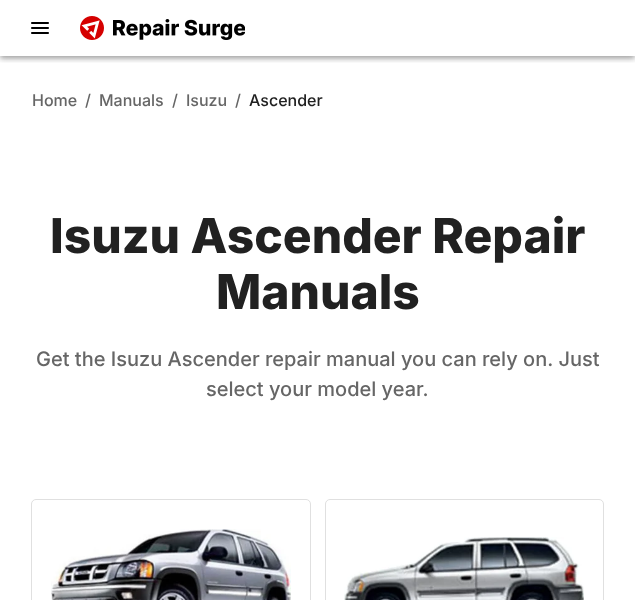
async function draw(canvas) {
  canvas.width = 635
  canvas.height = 600
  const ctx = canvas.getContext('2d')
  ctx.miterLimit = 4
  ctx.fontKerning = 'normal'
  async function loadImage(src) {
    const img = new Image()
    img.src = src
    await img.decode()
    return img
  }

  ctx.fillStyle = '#fff'
  ctx.fillRect(0, 0, 635, 600)
  ctx.save()
  ctx.beginPath()
  ctx.rect(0, 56, 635, 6)
  ctx.clip()
  ctx.fillStyle = '#0000001f'
  ctx.filter = 'blur(5px)'
  ctx.beginPath()
  ctx.rect(0, 1, 635, 56)
  ctx.fill()
  ctx.filter = 'none'
  ctx.restore()
  ctx.save()
  ctx.beginPath()
  ctx.rect(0, 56, 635, 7)
  ctx.clip()
  ctx.fillStyle = '#00000024'
  ctx.filter = 'blur(2.5px)'
  ctx.beginPath()
  ctx.rect(0, 4, 635, 56)
  ctx.fill()
  ctx.filter = 'none'
  ctx.restore()
  ctx.save()
  ctx.beginPath()
  ctx.rect(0, 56, 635, 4)
  ctx.clip()
  ctx.fillStyle = '#00000033'
  ctx.filter = 'blur(2px)'
  ctx.beginPath()
  ctx.rect(1, 3, 633, 54)
  ctx.fill()
  ctx.filter = 'none'
  ctx.restore()
  ctx.drawImage(await loadImage('image0.png'), 31, 22, 18, 12)
  ctx.drawImage(await loadImage('image1.png'), 80, 16, 165, 24)
  ctx.font = '500 16px Inter'
  ctx.fillStyle = '#666'
  ctx.fillText('Home', 32, 106)
  ctx.fillText('/', 85, 106)
  ctx.fillText('Manuals', 99, 106)
  ctx.fillText('/', 172, 106)
  ctx.fillText('Isuzu', 186, 106)
  ctx.fillText('/', 235, 106)
  ctx.fillStyle = '#212121'
  ctx.fillText('Ascender', 249, 106)
  ctx.font = '800 48px Inter'
  ctx.fillText('Isuzu Ascender Repair', 50, 253)
  ctx.fillText('Manuals', 216, 309)
  ctx.font = '500 20px Inter'
  ctx.fillStyle = '#666'
  ctx.fillText('Get the Isuzu Ascender repair manual you can rely on. Just', 36, 366)
  ctx.fillText('select your model year.', 206, 396)
  ctx.beginPath()
  ctx.roundRect(31.5, 499.5, 279, 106, 4.5)
  ctx.strokeStyle = '#e0e0e0'
  ctx.stroke()
  ctx.drawImage(await loadImage('image2.png'), 51, 529, 240, 71)
  ctx.beginPath()
  ctx.roundRect(325.5, 499.5, 278, 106, 4.5)
  ctx.stroke()
  ctx.drawImage(await loadImage('image3.png'), 344, 537, 240, 63)
}

draw(document.querySelector('canvas'))
